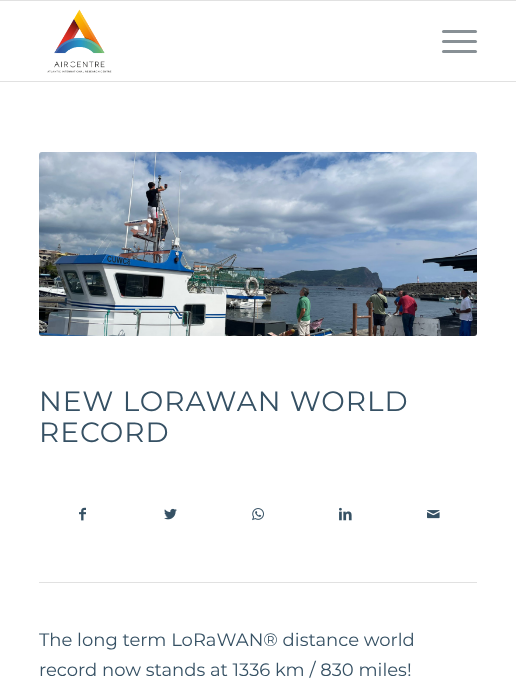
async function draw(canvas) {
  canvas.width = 516
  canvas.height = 681
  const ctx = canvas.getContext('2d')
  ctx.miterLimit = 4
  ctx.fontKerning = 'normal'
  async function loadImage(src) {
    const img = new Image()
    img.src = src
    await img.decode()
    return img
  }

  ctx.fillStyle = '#fff'
  ctx.fillRect(0, 0, 516, 681)
  ctx.fillStyle = '#e1e1e1'
  ctx.fillRect(0, 0, 516, 1)
  ctx.fillRect(0, 81, 516, 1)
  ctx.drawImage(await loadImage('image0.png'), 47, 9, 65, 64)
  ctx.fillStyle = '#889095'
  ctx.beginPath()
  ctx.roundRect(442, 40, 35, 3, 1.5)
  ctx.fill()
  ctx.beginPath()
  ctx.roundRect(442, 30, 35, 3, 1.5)
  ctx.fill()
  ctx.beginPath()
  ctx.roundRect(442, 50, 35, 3, 1.5)
  ctx.fill()
  ctx.drawImage(await loadImage('image1.png'), 39, 152, 438, 184)
  ctx.letterSpacing = '1px'
  ctx.font = '100 28px Montserrat'
  ctx.fillStyle = '#365164'
  ctx.fillText('NEW LORAWAN WORLD', 39, 411)
  ctx.fillText('RECORD', 39, 442)
  ctx.drawImage(await loadImage('image2.png'), 79, 507, 7, 14)
  ctx.drawImage(await loadImage('image3.png'), 164, 508, 13, 12)
  ctx.drawImage(await loadImage('image4.png'), 252, 508, 12, 13)
  ctx.drawImage(await loadImage('image5.png'), 339, 507, 13, 14)
  ctx.drawImage(await loadImage('image6.png'), 427, 510, 13, 9)
  ctx.fillStyle = '#e1e1e1'
  ctx.fillRect(39, 582, 438, 1)
  ctx.letterSpacing = '0px'
  ctx.font = '100 18px Montserrat'
  ctx.fillStyle = '#365164'
  ctx.fillText('The long term LoRaWAN® distance world', 39, 646)
  ctx.fillText('record now stands at 1336 km / 830 miles!', 39, 676)
}

draw(document.querySelector('canvas'))
